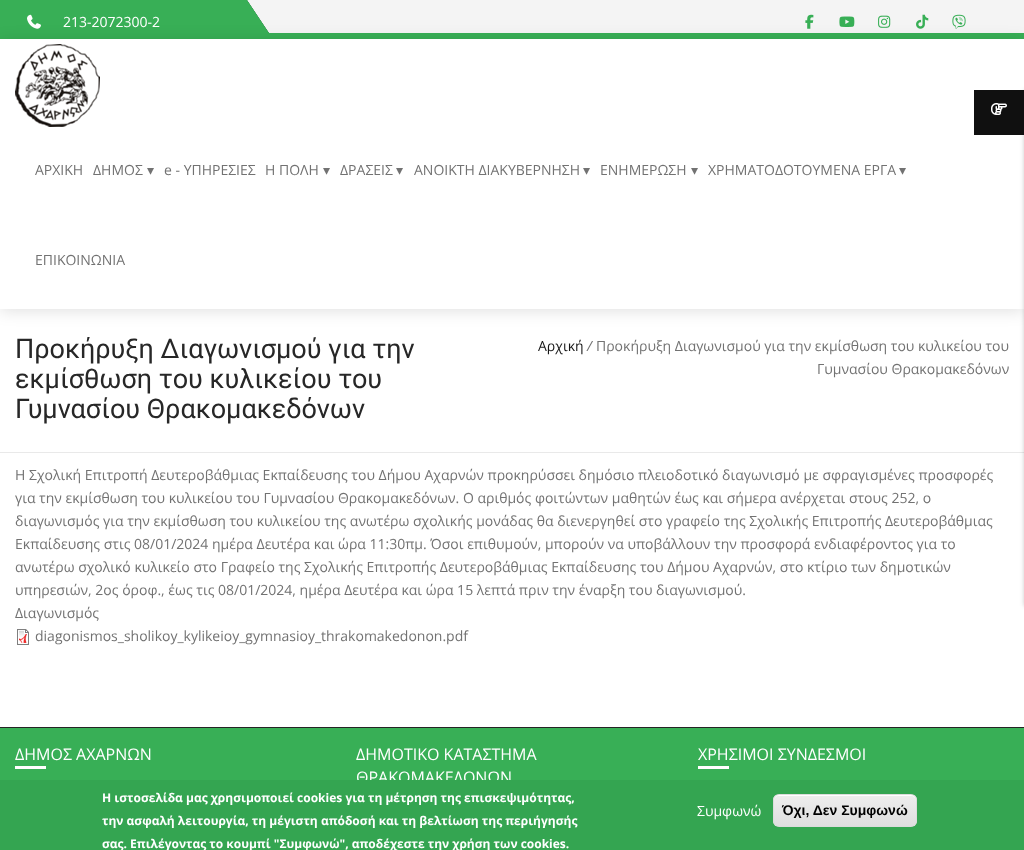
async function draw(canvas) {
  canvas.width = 1024
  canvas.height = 850
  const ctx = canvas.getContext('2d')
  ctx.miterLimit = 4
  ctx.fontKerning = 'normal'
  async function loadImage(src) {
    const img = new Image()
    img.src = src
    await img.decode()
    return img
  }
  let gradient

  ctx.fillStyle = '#fff'
  ctx.fillRect(0, 0, 1024, 850)
  ctx.fillStyle = '#38af56'
  ctx.fillRect(0, 33, 1024, 6)
  ctx.fillStyle = '#f4f4f4'
  ctx.fillRect(247, 0, 777, 33)
  ctx.drawImage(await loadImage('image0.png'), 0, 0, 15, 33)
  ctx.drawImage(await loadImage('image1.png'), 15, 0, 254, 33)
  ctx.drawImage(await loadImage('image2.png'), 27, 14, 14, 15)
  ctx.font = '14px Open Sans'
  ctx.fillStyle = '#fff'
  ctx.fillText('213-2072300-2', 63, 27)
  ctx.drawImage(await loadImage('image3.png'), 805, 14, 9, 15)
  ctx.drawImage(await loadImage('image4.png'), 839, 16, 16, 11)
  ctx.drawImage(await loadImage('image5.png'), 878, 15, 13, 13)
  ctx.drawImage(await loadImage('image6.png'), 916, 14, 13, 15)
  ctx.drawImage(await loadImage('image7.png'), 952, 14, 14, 15)
  ctx.save()
  ctx.beginPath()
  ctx.moveTo(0, 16)
  ctx.lineTo(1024, 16)
  ctx.lineTo(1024, 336)
  ctx.lineTo(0, 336)
  ctx.closePath()
  ctx.moveTo(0, 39)
  ctx.lineTo(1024, 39)
  ctx.lineTo(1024, 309)
  ctx.lineTo(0, 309)
  ctx.closePath()
  ctx.clip('evenodd')
  ctx.fillStyle = '#0000001f'
  ctx.filter = 'blur(8px)'
  ctx.beginPath()
  ctx.rect(0, 41, 1024, 270)
  ctx.fill()
  ctx.filter = 'none'
  ctx.restore()
  ctx.drawImage(await loadImage('image8.png'), 15, 44, 85, 83)
  ctx.fillStyle = '#727272'
  ctx.fillText('ΑΡΧΙΚΗ', 35, 175)
  ctx.fillText('ΔΗΜΟΣ', 93, 175)
  ctx.font = '14px DejaVu Sans'
  ctx.fillText('▾', 147, 175)
  ctx.font = '14px Open Sans'
  ctx.fillText('e - ΥΠΗΡΕΣΙΕΣ', 164, 175)
  ctx.fillText('Η ΠΟΛΗ', 265, 175)
  ctx.font = '14px DejaVu Sans'
  ctx.fillText('▾', 323, 175)
  ctx.font = '14px Open Sans'
  ctx.fillText('ΔΡΑΣΕΙΣ', 340, 175)
  ctx.font = '14px DejaVu Sans'
  ctx.fillText('▾', 396, 175)
  ctx.font = '14px Open Sans'
  ctx.fillText('ΑΝΟΙΚΤΗ ΔΙΑΚΥΒΕΡΝΗΣΗ', 414, 175)
  ctx.font = '14px DejaVu Sans'
  ctx.fillText('▾', 583, 175)
  ctx.font = '14px Open Sans'
  ctx.fillText('ΕΝΗΜΕΡΩΣΗ', 600, 175)
  ctx.font = '14px DejaVu Sans'
  ctx.fillText('▾', 691, 175)
  ctx.font = '14px Open Sans'
  ctx.fillText('ΧΡΗΜΑΤΟΔΟΤΟΥΜΕΝΑ ΕΡΓΑ', 708, 175)
  ctx.font = '14px DejaVu Sans'
  ctx.fillText('▾', 899, 175)
  ctx.font = '14px Open Sans'
  ctx.fillText('ΕΠΙΚΟΙΝΩΝΙΑ', 35, 265)
  ctx.fillStyle = '#e9e9e9'
  ctx.fillRect(0, 452, 1024, 1)
  ctx.font = '27px Roboto'
  ctx.fillStyle = '#272727'
  ctx.fillText('Προκήρυξη Διαγωνισμού για την', 15, 358)
  ctx.fillText('εκμίσθωση του κυλικείου του', 15, 388)
  ctx.fillText('Γυμνασίου Θρακομακεδόνων', 15, 418)
  ctx.font = '14px Open Sans'
  ctx.fillStyle = '#161616'
  ctx.fillText('Αρχική', 538, 351)
  ctx.font = 'italic 14px Open Sans'
  ctx.fillStyle = '#727272'
  ctx.fillText('/', 587, 351)
  ctx.font = '14px Open Sans'
  ctx.fillText('Προκήρυξη Διαγωνισμού για την εκμίσθωση του κυλικείου του', 596, 351)
  ctx.fillText('Γυμνασίου Θρακομακεδόνων', 817, 374)
  ctx.fillText('Η Σχολική Επιτροπή Δευτεροβάθμιας Εκπαίδευσης του Δήμου Αχαρνών προκηρύσσει δημόσιο πλειοδοτικό διαγωνισμό με σφραγισμένες προσφορές', 15, 480)
  ctx.fillText('για την εκμίσθωση του κυλικείου του Γυμνασίου Θρακομακεδόνων. Ο αριθμός φοιτώντων μαθητών έως και σήμερα ανέρχεται στους 252, ο', 15, 503)
  ctx.fillText('διαγωνισμός για την εκμίσθωση του κυλικείου της ανωτέρω σχολικής μονάδας θα διενεργηθεί στο γραφείο της Σχολικής Επιτροπής Δευτεροβάθμιας', 15, 526)
  ctx.fillText('Εκπαίδευσης στις 08/01/2024 ημέρα Δευτέρα και ώρα 11:30πμ. Όσοι επιθυμούν, μπορούν να υποβάλλουν την προσφορά ενδιαφέροντος για το', 15, 549)
  ctx.fillText('ανωτέρω σχολικό κυλικείο στο Γραφείο της Σχολικής Επιτροπής Δευτεροβάθμιας Εκπαίδευσης του Δήμου Αχαρνών, στο κτίριο των δημοτικών', 15, 572)
  ctx.fillText('υπηρεσιών, 2ος όροφ., έως τις 08/01/2024, ημέρα Δευτέρα και ώρα 15 λεπτά πριν την έναρξη του διαγωνισμού.', 15, 595)
  ctx.fillText('Διαγωνισμός', 15, 618)
  ctx.drawImage(await loadImage('image9.png'), 17, 629, 12, 16)
  ctx.fillText('diagonismos_sholikoy_kylikeioy_gymnasioy_thrakomakedonon.pdf', 35, 641)
  ctx.fillStyle = '#38af56'
  ctx.fillRect(0, 728, 1024, 52)
  ctx.fillStyle = '#242424'
  ctx.fillRect(0, 727, 1024, 1)
  ctx.font = '16px Open Sans'
  ctx.fillStyle = '#fff'
  ctx.fillText('ΔΗΜΟΣ ΑΧΑΡΝΩΝ', 15, 760)
  ctx.fillRect(15, 766, 31, 3)
  ctx.fillText('ΔΗΜΟΤΙΚΟ ΚΑΤΑΣΤΗΜΑ', 356, 760)
  ctx.fillText('ΘΡΑΚΟΜΑΚΕΔΟΝΩΝ', 356, 783)
  ctx.fillText('ΧΡΗΣΙΜΟΙ ΣΥΝΔΕΣΜΟΙ', 698, 760)
  ctx.fillRect(698, 766, 31, 3)
  ctx.fillStyle = '#00000033'
  ctx.filter = 'blur(2px)'
  ctx.beginPath()
  ctx.rect(1024, 90, 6, 516)
  ctx.fill()
  ctx.filter = 'none'
  ctx.fillStyle = '#101010'
  ctx.fillRect(974, 90, 50, 45)
  ctx.drawImage(await loadImage('image10.png'), 991, 103, 16, 12)
  ctx.fillStyle = '#34a551'
  ctx.fillRect(0, 780, 1024, 70)
  ctx.font = 'bold 12px Open Sans'
  ctx.fillStyle = '#fff'
  ctx.fillText('Η ιστοσελίδα μας χρησιμοποιεί cookies για τη μέτρηση της επισκεψιμότητας,', 102, 802)
  ctx.fillText('την ασφαλή λειτουργία, τη μέγιστη απόδοσή και τη βελτίωση της περιήγησής', 102, 825)
  ctx.fillText('σας. Επιλέγοντας το κουμπί "Συμφωνώ", αποδέχεστε την χρήση των cookies.', 102, 848)
  ctx.font = '14px Open Sans'
  ctx.fillText('Συμφωνώ', 697, 816)
  ctx.save()
  ctx.beginPath()
  ctx.roundRect(773, 794, 144, 33, 6)
  ctx.clip()
  gradient = ctx.createLinearGradient(845, 795, 845, 826)
  gradient.addColorStop(0.05, '#ededed')
  gradient.addColorStop(1, '#dfdfdf')
  ctx.fillStyle = gradient
  ctx.fillRect(773, 795, 144, 31)
  ctx.restore()
  ctx.beginPath()
  ctx.moveTo(779, 796)
  ctx.lineTo(911, 796)
  ctx.bezierCurveTo(914, 796, 916, 798, 916, 801)
  ctx.lineTo(916, 800)
  ctx.bezierCurveTo(916, 797, 914, 795, 911, 795)
  ctx.lineTo(779, 795)
  ctx.bezierCurveTo(776, 795, 774, 797, 774, 800)
  ctx.lineTo(774, 801)
  ctx.bezierCurveTo(774, 798, 776, 796, 779, 796)
  ctx.closePath()
  ctx.fill()
  ctx.beginPath()
  ctx.roundRect(773.5, 794.5, 143, 32, 5.5)
  ctx.strokeStyle = '#dcdcdc'
  ctx.stroke()
  ctx.font = 'bold 14px Liberation Sans'
  ctx.fillStyle = '#000'
  ctx.fillText('Όχι, Δεν Συμφωνώ', 782, 815)
}

draw(document.querySelector('canvas'))
